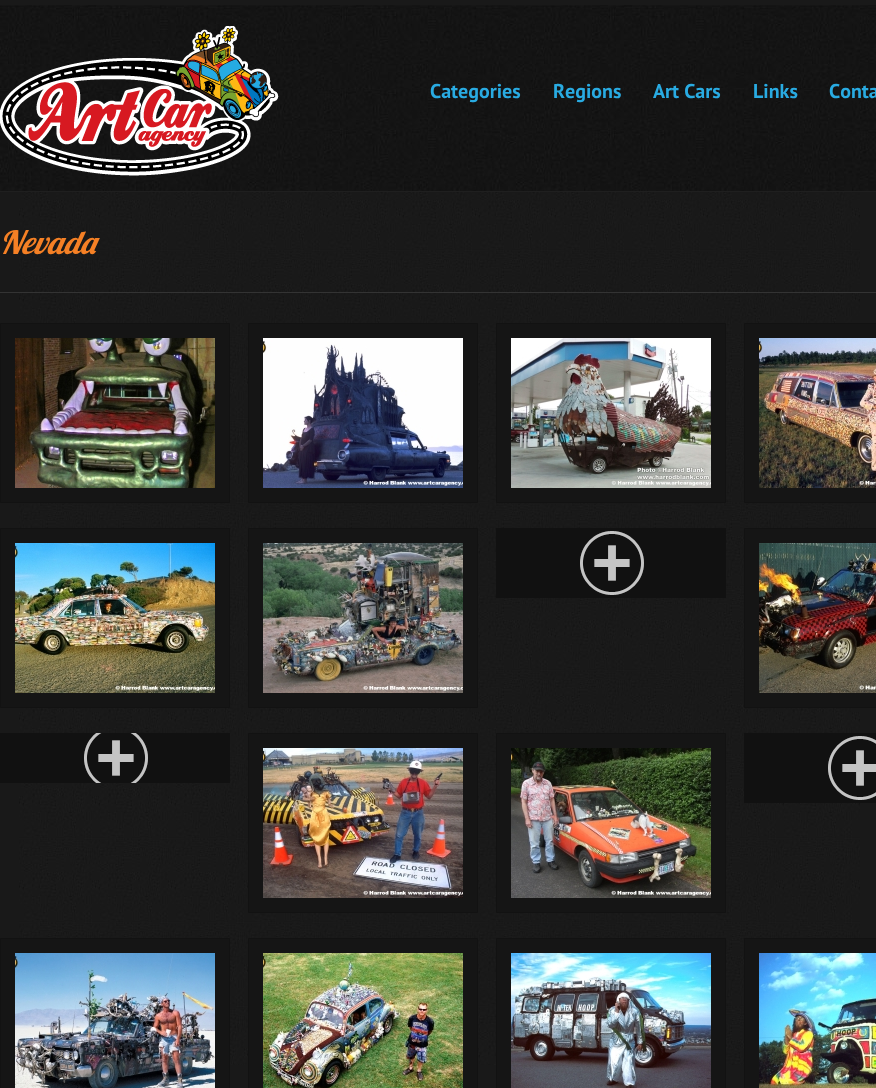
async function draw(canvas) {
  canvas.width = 876
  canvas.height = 1088
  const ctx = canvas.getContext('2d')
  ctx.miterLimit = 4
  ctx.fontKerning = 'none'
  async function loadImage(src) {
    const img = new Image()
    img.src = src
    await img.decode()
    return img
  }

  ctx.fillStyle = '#191919'
  ctx.fillRect(0, 0, 876, 1088)
  ctx.drawImage(await loadImage('image0.png'), 19, 192, 841, 873)
  ctx.drawImage(await loadImage('image1.png'), 0, 5, 876, 186)
  ctx.fillStyle = '#1f1f1f'
  ctx.fillRect(0, 191, 876, 1)
  ctx.drawImage(await loadImage('image2.png'), 0, 26, 279, 150)
  ctx.font = 'bold 20px PT Sans'
  ctx.fillStyle = '#29abe2'
  ctx.fillText('Categories', 430, 98)
  ctx.fillText('Regions', 553, 98)
  ctx.fillText('Art Cars', 653, 98)
  ctx.fillText('Links', 753, 98)
  ctx.fillText('Conta', 829, 98)
  ctx.fillStyle = '#333'
  ctx.fillRect(0, 292, 876, 1)
  ctx.font = 'italic 32px Lobster'
  ctx.fillStyle = '#f58025'
  ctx.fillText('Nevada', 0, 254)
  ctx.fillStyle = '#151515'
  ctx.beginPath()
  ctx.rect(0.5, 323.5, 229, 179)
  ctx.fill()
  ctx.strokeStyle = '#121212'
  ctx.stroke()
  ctx.drawImage(await loadImage('image3.png'), 15, 338, 200, 150)
  ctx.beginPath()
  ctx.rect(248.5, 323.5, 229, 179)
  ctx.fill()
  ctx.stroke()
  ctx.drawImage(await loadImage('image4.png'), 263, 338, 200, 150)
  ctx.beginPath()
  ctx.rect(496.5, 323.5, 229, 179)
  ctx.fill()
  ctx.stroke()
  ctx.drawImage(await loadImage('image5.png'), 511, 338, 200, 150)
  ctx.beginPath()
  ctx.rect(744.5, 323.5, 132, 179)
  ctx.fill()
  ctx.stroke()
  ctx.drawImage(await loadImage('image6.png'), 759, 338, 117, 150)
  ctx.beginPath()
  ctx.rect(0.5, 528.5, 229, 179)
  ctx.fill()
  ctx.stroke()
  ctx.drawImage(await loadImage('image7.png'), 15, 543, 200, 150)
  ctx.beginPath()
  ctx.rect(248.5, 528.5, 229, 179)
  ctx.fill()
  ctx.stroke()
  ctx.drawImage(await loadImage('image8.png'), 263, 543, 200, 150)
  ctx.fillStyle = '#111'
  ctx.fillRect(496, 528, 230, 70)
  ctx.drawImage(await loadImage('image9.png'), 580, 531, 64, 64)
  ctx.fillStyle = '#151515'
  ctx.beginPath()
  ctx.rect(744.5, 528.5, 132, 179)
  ctx.fill()
  ctx.stroke()
  ctx.drawImage(await loadImage('image10.png'), 759, 543, 117, 150)
  ctx.fillStyle = '#111'
  ctx.fillRect(0, 733, 230, 50)
  ctx.drawImage(await loadImage('image11.png'), 84, 733, 64, 50)
  ctx.fillStyle = '#151515'
  ctx.beginPath()
  ctx.rect(248.5, 733.5, 229, 179)
  ctx.fill()
  ctx.stroke()
  ctx.drawImage(await loadImage('image12.png'), 263, 748, 200, 150)
  ctx.beginPath()
  ctx.rect(496.5, 733.5, 229, 179)
  ctx.fill()
  ctx.stroke()
  ctx.drawImage(await loadImage('image13.png'), 511, 748, 200, 150)
  ctx.fillStyle = '#111'
  ctx.fillRect(744, 733, 132, 70)
  ctx.drawImage(await loadImage('image14.png'), 828, 736, 48, 64)
  ctx.fillStyle = '#151515'
  ctx.beginPath()
  ctx.rect(0.5, 938.5, 229, 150)
  ctx.fill()
  ctx.stroke()
  ctx.drawImage(await loadImage('image15.png'), 15, 953, 200, 135)
  ctx.beginPath()
  ctx.rect(248.5, 938.5, 229, 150)
  ctx.fill()
  ctx.stroke()
  ctx.drawImage(await loadImage('image16.png'), 263, 953, 200, 135)
  ctx.beginPath()
  ctx.rect(496.5, 938.5, 229, 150)
  ctx.fill()
  ctx.stroke()
  ctx.drawImage(await loadImage('image17.png'), 511, 953, 200, 135)
  ctx.beginPath()
  ctx.rect(744.5, 938.5, 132, 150)
  ctx.fill()
  ctx.stroke()
  ctx.drawImage(await loadImage('image18.png'), 759, 953, 117, 135)
}

draw(document.querySelector('canvas'))
